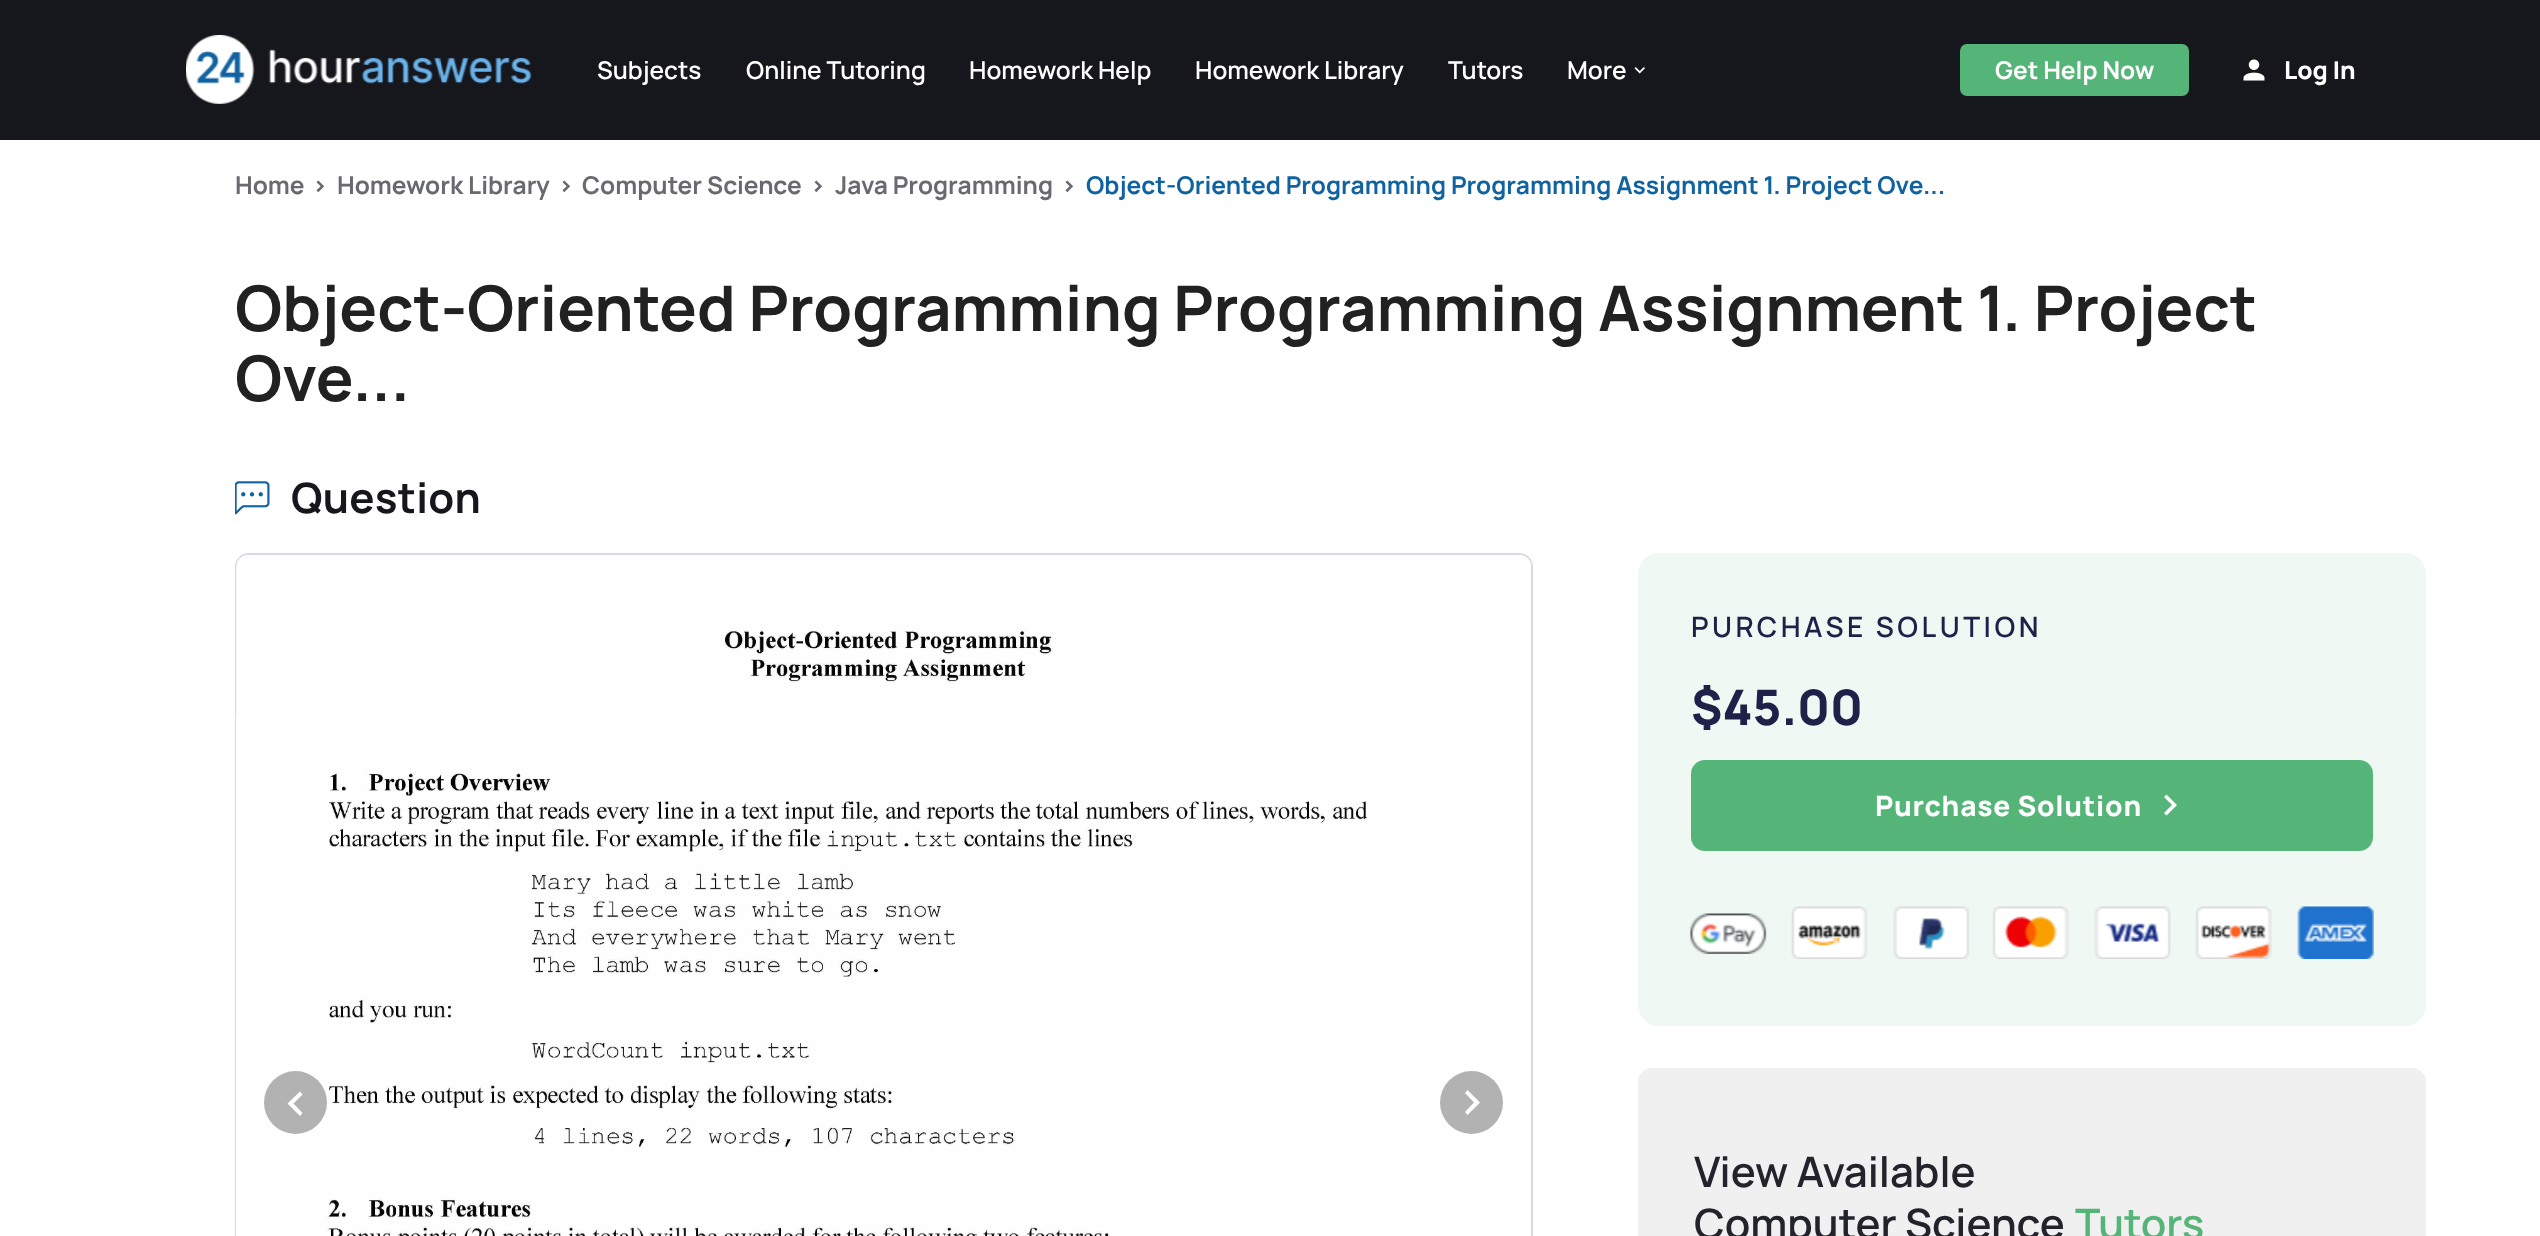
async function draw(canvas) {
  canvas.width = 2540
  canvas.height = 1236
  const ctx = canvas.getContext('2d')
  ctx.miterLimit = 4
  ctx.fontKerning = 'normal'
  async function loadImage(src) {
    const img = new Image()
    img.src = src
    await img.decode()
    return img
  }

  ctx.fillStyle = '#fff'
  ctx.fillRect(0, 0, 2540, 1236)
  ctx.fillStyle = '#16161d'
  ctx.fillRect(0, 0, 2540, 140)
  ctx.drawImage(await loadImage('image0.png'), 186, 35, 346, 69)
  ctx.font = '600 24.5px Manrope'
  ctx.fillStyle = '#fff'
  ctx.fillText('Subjects', 597, 79)
  ctx.fillText('Online Tutoring', 746, 79)
  ctx.fillText('Homework Help', 969, 79)
  ctx.fillText('Homework Library', 1195, 79)
  ctx.fillText('Tutors', 1448, 79)
  ctx.fillText('More', 1567, 79)
  ctx.drawImage(await loadImage('image1.png'), 1634, 67, 11, 7)
  ctx.fillStyle = '#55b477'
  ctx.beginPath()
  ctx.roundRect(1960, 44, 229, 52, 7)
  ctx.fill()
  ctx.font = 'bold 24.5px Manrope'
  ctx.fillStyle = '#fff'
  ctx.fillText('Get Help Now', 1995, 79)
  ctx.drawImage(await loadImage('image2.png'), 2243, 59, 22, 22)
  ctx.font = '800 24.5px Manrope'
  ctx.fillText('Log In', 2284, 79)
  ctx.font = 'bold 24.5px Manrope'
  ctx.fillStyle = '#696971'
  ctx.fillText('Home', 235, 194)
  ctx.fillText('>', 312, 194)
  ctx.fillText('Homework Library', 337, 194)
  ctx.fillText('>', 558, 194)
  ctx.fillText('Computer Science', 582, 194)
  ctx.fillText('>', 810, 194)
  ctx.fillText('Java Programming', 835, 194)
  ctx.fillText('>', 1061, 194)
  ctx.fillStyle = '#1063a0'
  ctx.fillText('Object-Oriented Programming Programming Assignment 1. Project Ove...', 1086, 194)
  ctx.font = 'bold 63px Manrope'
  ctx.fillStyle = '#212121'
  ctx.fillText('Object-Oriented Programming Programming Assignment 1. Project', 235, 331)
  ctx.fillText('Ove...', 235, 401)
  ctx.drawImage(await loadImage('image3.png'), 235, 481, 35, 34)
  ctx.letterSpacing = '0.25px'
  ctx.font = 'bold 42px Manrope'
  ctx.fillStyle = '#16161d'
  ctx.fillText('Question', 291, 513)
  ctx.beginPath()
  ctx.roundRect(236, 554, 1296, 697, 13)
  ctx.strokeStyle = '#d8d9e6'
  ctx.lineWidth = 2
  ctx.stroke()
  ctx.drawImage(await loadImage('image4.png'), 236, 555, 1295, 681)
  ctx.fillStyle = '#b2b2b2'
  ctx.beginPath()
  ctx.arc(295.5, 1102.5, 31.5, 0, 2 * Math.PI)
  ctx.fill()
  ctx.fillStyle = '#fff'
  ctx.beginPath()
  ctx.moveTo(302.5, 1094.5)
  ctx.lineTo(293.5, 1103.5)
  ctx.lineTo(302.5, 1113)
  ctx.lineTo(300, 1116)
  ctx.lineTo(287.5, 1103.5)
  ctx.lineTo(300, 1091.5)
  ctx.closePath()
  ctx.fill()
  ctx.fillStyle = '#b2b2b2'
  ctx.beginPath()
  ctx.arc(1471.5, 1102.5, 31.5, 0, 2 * Math.PI)
  ctx.fill()
  ctx.fillStyle = '#fff'
  ctx.beginPath()
  ctx.moveTo(1465, 1112)
  ctx.lineTo(1474, 1102.5)
  ctx.lineTo(1465, 1093)
  ctx.lineTo(1467.5, 1090)
  ctx.lineTo(1480, 1102.5)
  ctx.lineTo(1467.5, 1115)
  ctx.closePath()
  ctx.fill()
  ctx.fillStyle = '#eff8f2'
  ctx.beginPath()
  ctx.roundRect(1638, 553, 788, 473, 21)
  ctx.fill()
  ctx.letterSpacing = '3.5px'
  ctx.font = '600 28px Manrope'
  ctx.fillStyle = '#1f2148'
  ctx.fillText('PURCHASE SOLUTION', 1691, 637)
  ctx.letterSpacing = '0px'
  ctx.font = '800 49px Manrope'
  ctx.fillText('$45.00', 1691, 725)
  ctx.fillStyle = '#55b477'
  ctx.beginPath()
  ctx.roundRect(1691, 760, 682, 91, 14)
  ctx.fill()
  ctx.letterSpacing = '0.75px'
  ctx.font = '800 28px Manrope'
  ctx.fillStyle = '#fff'
  ctx.fillText('Purchase Solution', 1875, 816)
  ctx.beginPath()
  ctx.moveTo(2164, 813)
  ctx.lineTo(2172, 805)
  ctx.lineTo(2164, 797)
  ctx.lineTo(2166.5, 794.5)
  ctx.lineTo(2177, 805)
  ctx.lineTo(2166.5, 815.5)
  ctx.closePath()
  ctx.fill()
  ctx.drawImage(await loadImage('image5.png'), 1690, 913, 77, 41)
  ctx.drawImage(await loadImage('image6.png'), 1791, 906, 77, 53)
  ctx.drawImage(await loadImage('image7.png'), 1893, 906, 77, 53)
  ctx.drawImage(await loadImage('image8.png'), 1992, 906, 77, 53)
  ctx.drawImage(await loadImage('image9.png'), 2094, 906, 77, 53)
  ctx.drawImage(await loadImage('image10.png'), 2195, 906, 77, 53)
  ctx.drawImage(await loadImage('image11.png'), 2297, 906, 77, 53)
  ctx.fillStyle = '#f0f0f1'
  ctx.beginPath()
  ctx.roundRect(1638, 1068, 788, 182, 14)
  ctx.fill()
  ctx.letterSpacing = '0px'
  ctx.font = '600 42px Manrope'
  ctx.fillStyle = '#23232c'
  ctx.fillText('View Available', 1694, 1187)
  ctx.fillText('Computer Science', 1694, 1239)
  ctx.fillStyle = '#55b477'
  ctx.fillText('Tutors', 2075, 1239)
}

draw(document.querySelector('canvas'))
